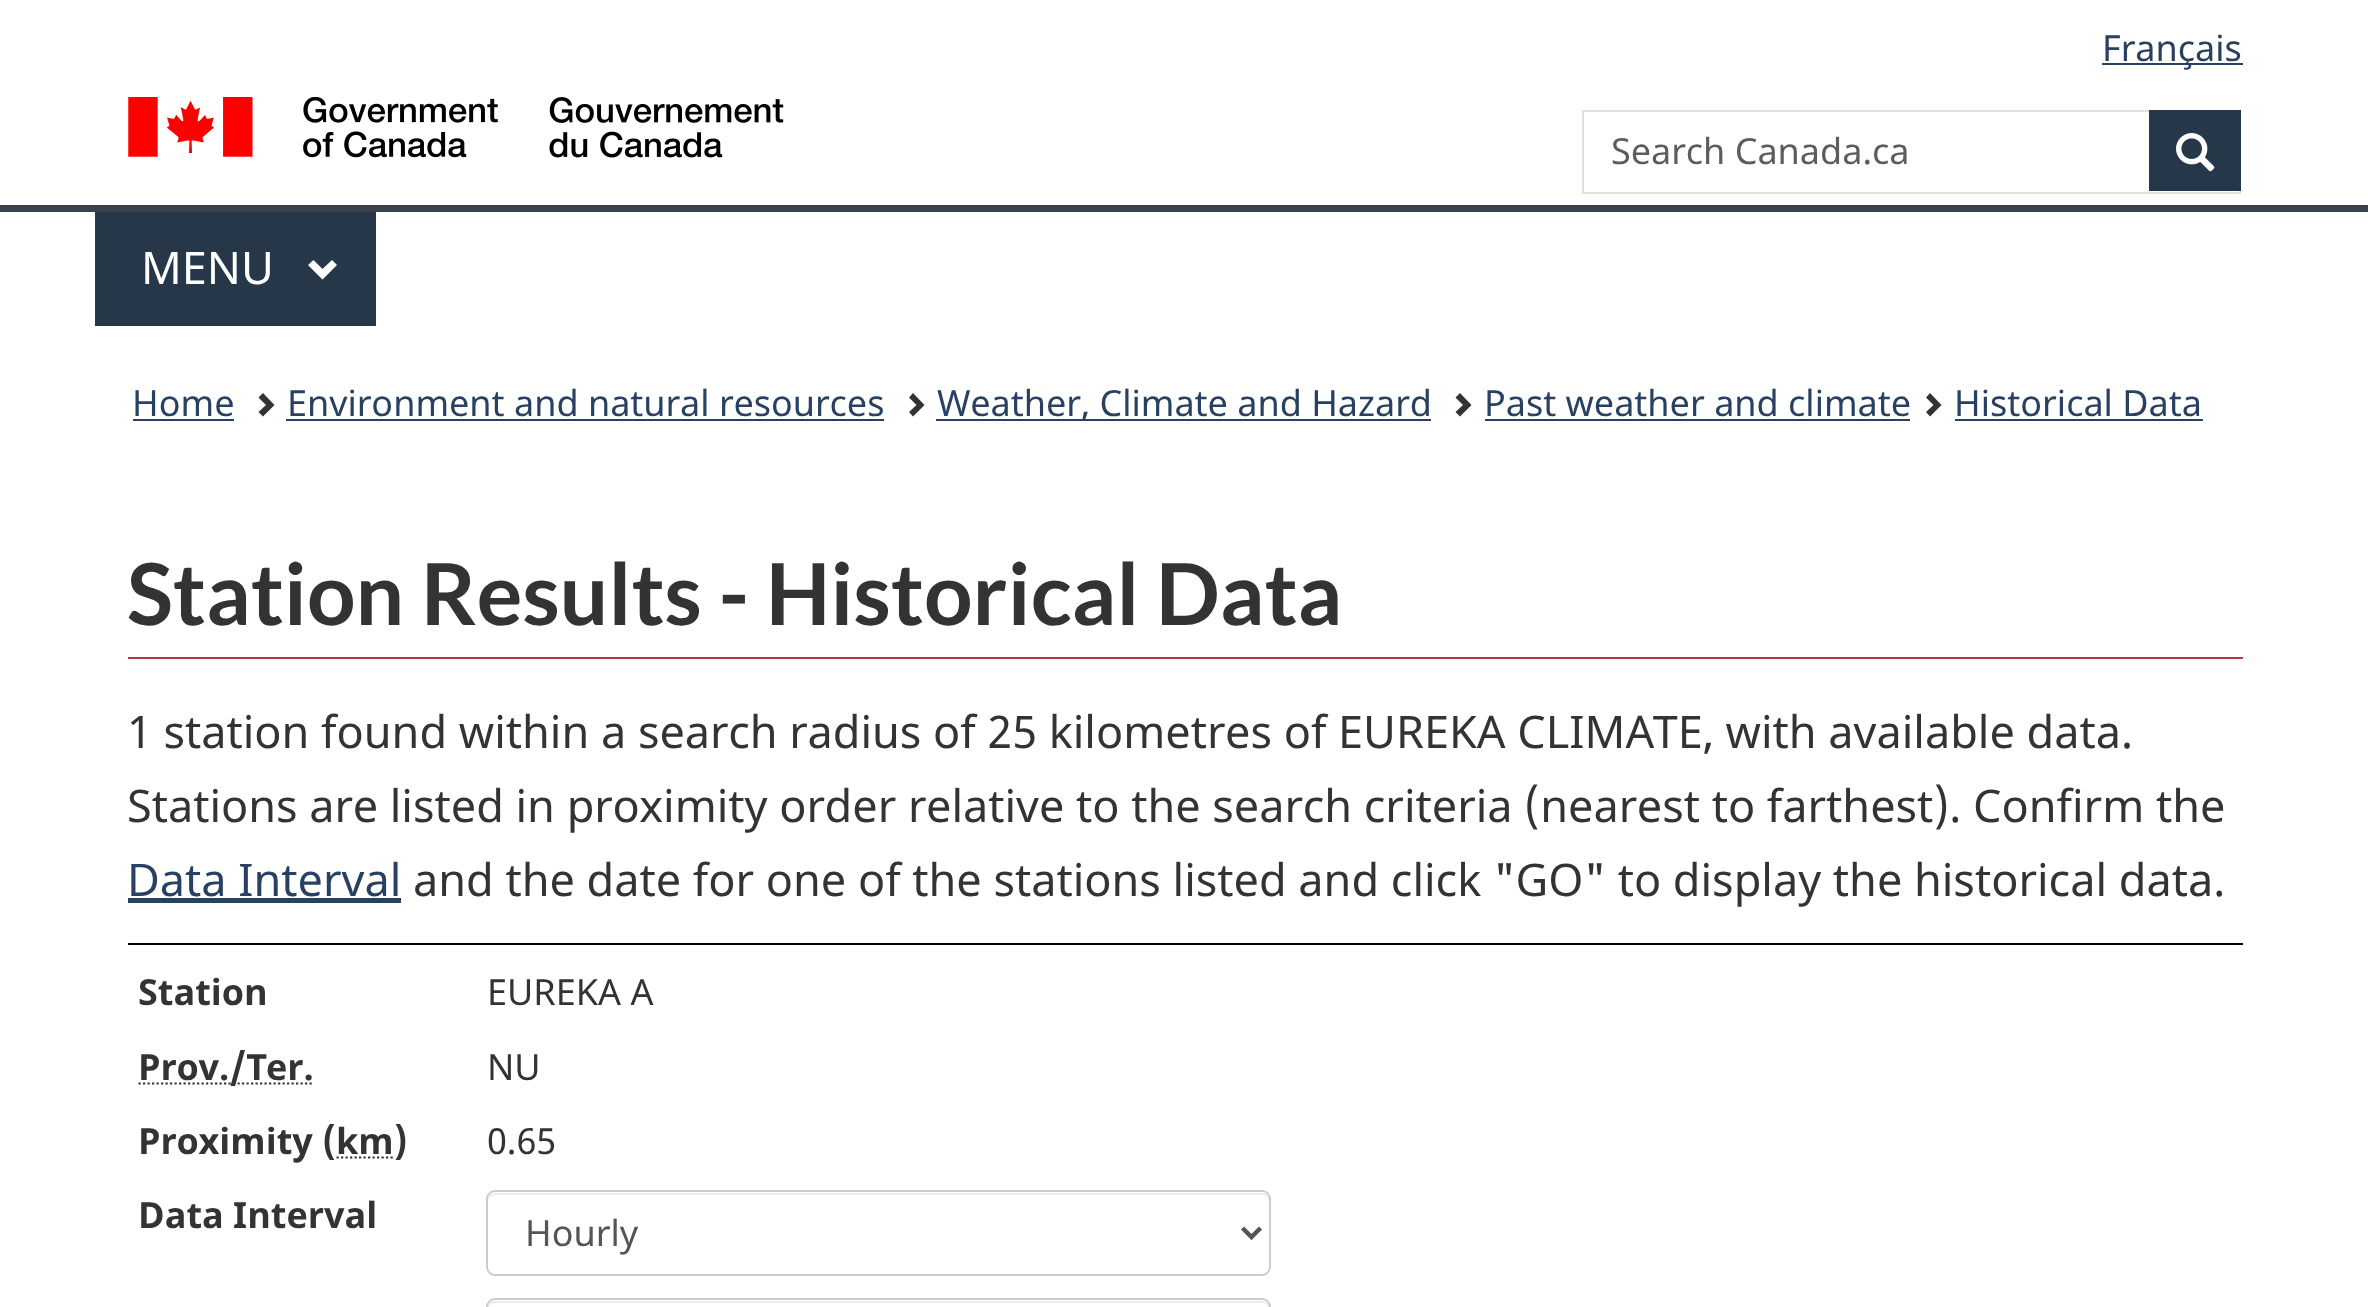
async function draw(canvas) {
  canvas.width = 2368
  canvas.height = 1307
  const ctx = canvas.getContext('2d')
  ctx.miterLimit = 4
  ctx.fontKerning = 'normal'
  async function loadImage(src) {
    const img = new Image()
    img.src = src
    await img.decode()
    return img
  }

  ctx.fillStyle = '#fff'
  ctx.fillRect(0, 0, 2368, 1307)
  ctx.fillStyle = '#284162'
  ctx.fillRect(2102, 63, 141, 2)
  ctx.font = '36px Noto Sans'
  ctx.fillText('Français', 2102, 61)
  ctx.drawImage(await loadImage('image0.png'), 128, 97, 656, 61)
  ctx.strokeStyle = '#e0e0e0'
  ctx.lineWidth = 2
  ctx.strokeRect(1583, 111, 657, 82)
  ctx.fillStyle = '#5c5c5c'
  ctx.fillText('Search Canada.ca', 1611, 164)
  ctx.fillStyle = '#26374a'
  ctx.fillRect(2149, 110, 92, 81)
  ctx.drawImage(await loadImage('image1.png'), 2176, 133, 39, 39)
  ctx.fillStyle = '#38414d'
  ctx.fillRect(0, 205, 2368, 7)
  ctx.fillStyle = '#26374a'
  ctx.fillRect(95, 212, 281, 114)
  ctx.font = '45px Noto Sans'
  ctx.fillStyle = '#fff'
  ctx.fillText('MENU', 141, 284)
  ctx.beginPath()
  ctx.moveTo(337, 265)
  ctx.lineTo(322.5, 279.5)
  ctx.lineTo(308, 265)
  ctx.lineTo(313.5, 260)
  ctx.lineTo(322.5, 269)
  ctx.lineTo(332, 260)
  ctx.closePath()
  ctx.fill()
  ctx.font = '36px Noto Sans'
  ctx.fillStyle = '#284162'
  ctx.fillText('Home', 132, 416)
  ctx.fillRect(133, 419, 101, 2)
  ctx.fillStyle = '#333'
  ctx.beginPath()
  ctx.moveTo(274.5, 405)
  ctx.lineTo(263, 416.5)
  ctx.lineTo(258.5, 412)
  ctx.lineTo(266, 405)
  ctx.lineTo(258.5, 397.5)
  ctx.lineTo(263, 393)
  ctx.closePath()
  ctx.fill()
  ctx.fillStyle = '#284162'
  ctx.fillText('Environment and natural resources', 287, 416)
  ctx.fillRect(286, 419, 598, 2)
  ctx.fillStyle = '#333'
  ctx.beginPath()
  ctx.moveTo(924.5, 405)
  ctx.lineTo(913, 416.5)
  ctx.lineTo(909, 412)
  ctx.lineTo(916.5, 405)
  ctx.lineTo(909, 397.5)
  ctx.lineTo(913, 393)
  ctx.closePath()
  ctx.fill()
  ctx.fillStyle = '#284162'
  ctx.fillRect(936, 419, 495, 2)
  ctx.fillText('Weather, Climate and Hazard', 937, 416)
  ctx.fillStyle = '#333'
  ctx.beginPath()
  ctx.moveTo(1471.5, 405)
  ctx.lineTo(1460, 416.5)
  ctx.lineTo(1455.5, 412)
  ctx.lineTo(1463, 405)
  ctx.lineTo(1455.5, 397.5)
  ctx.lineTo(1460, 393)
  ctx.closePath()
  ctx.fill()
  ctx.fillStyle = '#284162'
  ctx.fillText('Past weather and climate', 1484, 416)
  ctx.fillRect(1485, 419, 425, 2)
  ctx.fillStyle = '#333'
  ctx.beginPath()
  ctx.moveTo(1941.5, 405)
  ctx.lineTo(1930, 416.5)
  ctx.lineTo(1926, 412)
  ctx.lineTo(1933.5, 405)
  ctx.lineTo(1926, 397.5)
  ctx.lineTo(1930, 393)
  ctx.closePath()
  ctx.fill()
  ctx.fillStyle = '#284162'
  ctx.fillText('Historical Data', 1954, 416)
  ctx.fillRect(1955, 419, 248, 2)
  ctx.fillStyle = '#af3c43'
  ctx.fillRect(128, 657, 2115, 2)
  ctx.font = 'bold 85.5px Lato'
  ctx.fillStyle = '#333'
  ctx.fillText('Station Results - Historical Data', 127, 625)
  ctx.font = '45px Noto Sans'
  ctx.fillText('1 station found within a search radius of 25 kilometres of EUREKA CLIMATE, with available data.', 127, 748)
  ctx.fillText('Stations are listed in proximity order relative to the search criteria (nearest to farthest). Confirm the', 127, 822)
  ctx.fillStyle = '#284162'
  ctx.fillText('Data Interval', 127, 896)
  ctx.fillRect(128, 898, 273, 5)
  ctx.fillStyle = '#333'
  ctx.fillText('and the date for one of the stations listed and click "GO" to display the historical data.', 413, 896)
  ctx.fillStyle = '#000'
  ctx.fillRect(128, 943, 2115, 2)
  ctx.font = 'bold 36px Noto Sans'
  ctx.fillStyle = '#333'
  ctx.fillText('Station', 138, 1005)
  ctx.font = '36px Noto Sans'
  ctx.fillText('EUREKA A', 487, 1005)
  ctx.beginPath()
  ctx.moveTo(138.5, 1083.5)
  ctx.lineTo(314, 1083.5)
  ctx.strokeStyle = '#333'
  ctx.lineWidth = 2.2
  ctx.setLineDash([2.25, 2.25])
  ctx.stroke()
  ctx.font = 'bold 36px Noto Sans'
  ctx.fillText('Prov./Ter.', 138, 1080)
  ctx.font = '36px Noto Sans'
  ctx.fillText('NU', 487, 1080)
  ctx.font = 'bold 36px Noto Sans'
  ctx.fillText('Proximity (km)', 138, 1154)
  ctx.beginPath()
  ctx.moveTo(336.5, 1157.5)
  ctx.lineTo(394, 1157.5)
  ctx.stroke()
  ctx.font = '36px Noto Sans'
  ctx.fillText('0.65', 487, 1154)
  ctx.font = 'bold 36px Noto Sans'
  ctx.fillText('Data Interval', 138, 1228)
  ctx.fillStyle = '#ececec'
  ctx.beginPath()
  ctx.moveTo(495, 1195)
  ctx.lineTo(1262, 1195)
  ctx.bezierCurveTo(1266, 1195, 1269, 1198, 1269, 1202)
  ctx.lineTo(1269, 1200)
  ctx.bezierCurveTo(1269, 1196, 1266, 1193, 1262, 1193)
  ctx.lineTo(495, 1193)
  ctx.bezierCurveTo(491, 1193, 488, 1196, 488, 1200)
  ctx.lineTo(488, 1202)
  ctx.bezierCurveTo(488, 1198, 491, 1195, 495, 1195)
  ctx.closePath()
  ctx.fill()
  ctx.beginPath()
  ctx.roundRect(487, 1191, 783, 84, 8)
  ctx.strokeStyle = '#ccc'
  ctx.lineWidth = 2
  ctx.setLineDash([])
  ctx.stroke()
  ctx.beginPath()
  ctx.moveTo(1242.5, 1228)
  ctx.lineTo(1251.5, 1237)
  ctx.lineTo(1260.5, 1228)
  ctx.strokeStyle = '#555'
  ctx.lineWidth = 4.5
  ctx.stroke()
  ctx.font = '36px Noto Sans'
  ctx.fillStyle = '#555'
  ctx.fillText('Hourly', 525, 1246)
  ctx.fillStyle = '#ececec'
  ctx.beginPath()
  ctx.moveTo(495, 1303)
  ctx.lineTo(1262, 1303)
  ctx.bezierCurveTo(1266, 1303, 1269, 1306, 1269, 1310)
  ctx.lineTo(1269, 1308)
  ctx.bezierCurveTo(1269, 1304, 1266, 1301, 1262, 1301)
  ctx.lineTo(495, 1301)
  ctx.bezierCurveTo(491, 1301, 488, 1304, 488, 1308)
  ctx.lineTo(488, 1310)
  ctx.bezierCurveTo(488, 1306, 491, 1303, 495, 1303)
  ctx.closePath()
  ctx.fill()
  ctx.beginPath()
  ctx.roundRect(487, 1299, 783, 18, 8)
  ctx.strokeStyle = '#ccc'
  ctx.lineWidth = 2
  ctx.stroke()
}

draw(document.querySelector('canvas'))
